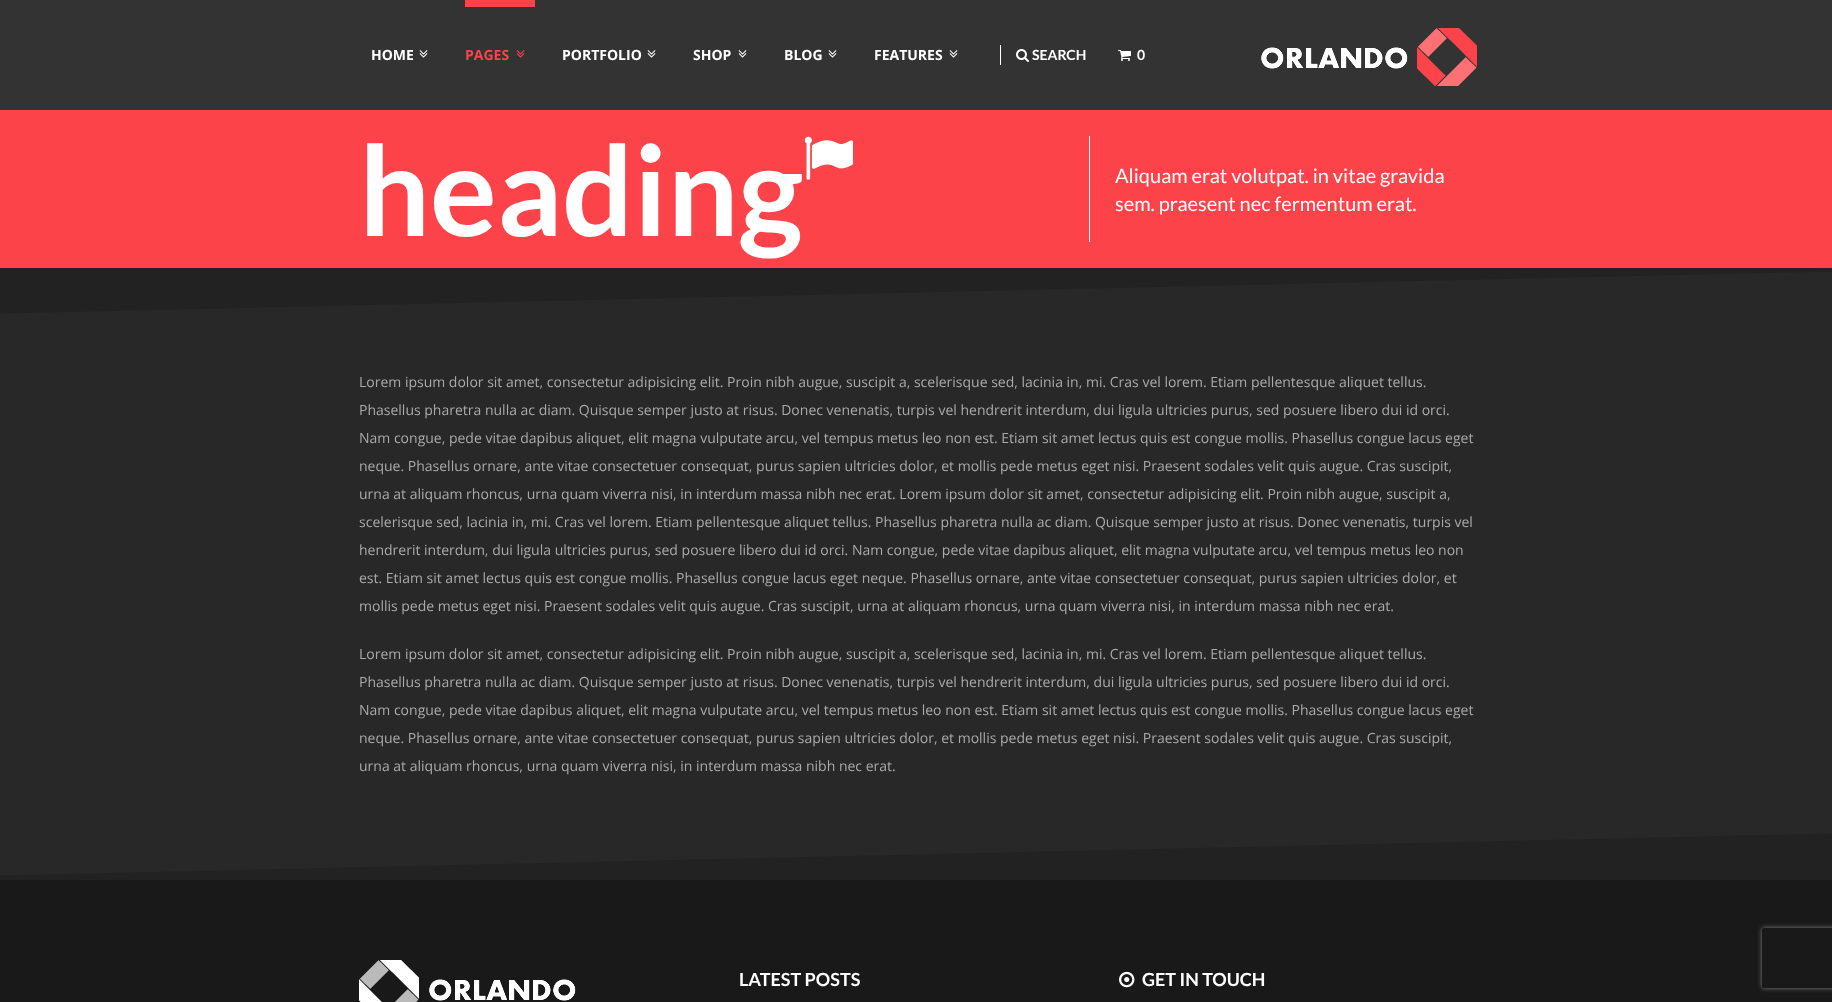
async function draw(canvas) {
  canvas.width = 1832
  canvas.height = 1002
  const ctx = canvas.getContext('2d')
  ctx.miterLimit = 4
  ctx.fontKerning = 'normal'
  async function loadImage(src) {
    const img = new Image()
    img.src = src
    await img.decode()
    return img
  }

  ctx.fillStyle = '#fc4349'
  ctx.fillRect(0, 0, 1832, 1002)
  ctx.fillStyle = '#333'
  ctx.fillRect(0, 0, 1832, 110)
  ctx.font = 'bold 14px Open Sans'
  ctx.fillStyle = '#fff'
  ctx.fillText('HOME', 371, 60)
  ctx.drawImage(await loadImage('image0.png'), 419, 50, 9, 8)
  ctx.fillStyle = '#fc4349'
  ctx.fillRect(465, 0, 70, 7)
  ctx.fillText('PAGES', 465, 60)
  ctx.drawImage(await loadImage('image1.png'), 516, 50, 9, 8)
  ctx.fillStyle = '#fff'
  ctx.fillText('PORTFOLIO', 562, 60)
  ctx.drawImage(await loadImage('image0.png'), 647, 50, 9, 8)
  ctx.fillText('SHOP', 693, 60)
  ctx.drawImage(await loadImage('image0.png'), 738, 50, 9, 8)
  ctx.fillText('BLOG', 784, 60)
  ctx.drawImage(await loadImage('image0.png'), 828, 50, 9, 8)
  ctx.fillText('FEATURES', 874, 60)
  ctx.drawImage(await loadImage('image0.png'), 949, 50, 9, 8)
  ctx.fillRect(1000, 45, 1, 20)
  ctx.drawImage(await loadImage('image2.png'), 1016, 49, 13, 13)
  ctx.font = 'bold 14px Lato'
  ctx.fillText('SEARCH', 1032, 60)
  ctx.drawImage(await loadImage('image3.png'), 1118, 50, 13, 11)
  ctx.fillText('0', 1137, 60)
  ctx.drawImage(await loadImage('image4.png'), 1261, 28, 216, 58)
  ctx.font = 'bold 125px Lato'
  ctx.fillText('heading', 359, 236)
  ctx.drawImage(await loadImage('image5.png'), 804, 136, 49, 44)
  ctx.fillRect(1089, 136, 1, 106)
  ctx.font = '20px Lato'
  ctx.fillText('Aliquam erat volutpat. in vitae gravida', 1115, 183)
  ctx.fillText('sem. praesent nec fermentum erat.', 1115, 211)
  ctx.fillStyle = '#282828'
  ctx.fillRect(0, 271, 1832, 605)
  ctx.save()
  ctx.beginPath()
  ctx.rect(0, 268, 1832, 612)
  ctx.clip()
  ctx.fillStyle = '#222'
  ctx.beginPath()
  ctx.moveTo(-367, 272)
  ctx.lineTo(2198, 213)
  ctx.lineTo(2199, 263)
  ctx.lineTo(-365, 322)
  ctx.closePath()
  ctx.fill()
  ctx.restore()
  ctx.font = '14px Open Sans'
  ctx.fillStyle = '#aaa'
  ctx.fillText('Lorem ipsum dolor sit amet, consectetur adipisicing elit. Proin nibh augue, suscipit a, scelerisque sed, lacinia in, mi. Cras vel lorem. Etiam pellentesque aliquet tellus.', 359, 387)
  ctx.fillText('Phasellus pharetra nulla ac diam. Quisque semper justo at risus. Donec venenatis, turpis vel hendrerit interdum, dui ligula ultricies purus, sed posuere libero dui id orci.', 359, 415)
  ctx.fillText('Nam congue, pede vitae dapibus aliquet, elit magna vulputate arcu, vel tempus metus leo non est. Etiam sit amet lectus quis est congue mollis. Phasellus congue lacus eget', 359, 443)
  ctx.fillText('neque. Phasellus ornare, ante vitae consectetuer consequat, purus sapien ultricies dolor, et mollis pede metus eget nisi. Praesent sodales velit quis augue. Cras suscipit,', 359, 471)
  ctx.fillText('urna at aliquam rhoncus, urna quam viverra nisi, in interdum massa nibh nec erat. Lorem ipsum dolor sit amet, consectetur adipisicing elit. Proin nibh augue, suscipit a,', 359, 499)
  ctx.fillText('scelerisque sed, lacinia in, mi. Cras vel lorem. Etiam pellentesque aliquet tellus. Phasellus pharetra nulla ac diam. Quisque semper justo at risus. Donec venenatis, turpis vel', 359, 527)
  ctx.fillText('hendrerit interdum, dui ligula ultricies purus, sed posuere libero dui id orci. Nam congue, pede vitae dapibus aliquet, elit magna vulputate arcu, vel tempus metus leo non', 359, 555)
  ctx.fillText('est. Etiam sit amet lectus quis est congue mollis. Phasellus congue lacus eget neque. Phasellus ornare, ante vitae consectetuer consequat, purus sapien ultricies dolor, et', 359, 583)
  ctx.fillText('mollis pede metus eget nisi. Praesent sodales velit quis augue. Cras suscipit, urna at aliquam rhoncus, urna quam viverra nisi, in interdum massa nibh nec erat.', 359, 611)
  ctx.fillText('Lorem ipsum dolor sit amet, consectetur adipisicing elit. Proin nibh augue, suscipit a, scelerisque sed, lacinia in, mi. Cras vel lorem. Etiam pellentesque aliquet tellus.', 359, 659)
  ctx.fillText('Phasellus pharetra nulla ac diam. Quisque semper justo at risus. Donec venenatis, turpis vel hendrerit interdum, dui ligula ultricies purus, sed posuere libero dui id orci.', 359, 687)
  ctx.fillText('Nam congue, pede vitae dapibus aliquet, elit magna vulputate arcu, vel tempus metus leo non est. Etiam sit amet lectus quis est congue mollis. Phasellus congue lacus eget', 359, 715)
  ctx.fillText('neque. Phasellus ornare, ante vitae consectetuer consequat, purus sapien ultricies dolor, et mollis pede metus eget nisi. Praesent sodales velit quis augue. Cras suscipit,', 359, 743)
  ctx.fillText('urna at aliquam rhoncus, urna quam viverra nisi, in interdum massa nibh nec erat.', 359, 771)
  ctx.fillStyle = '#222'
  ctx.beginPath()
  ctx.moveTo(-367, 884)
  ctx.lineTo(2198, 825)
  ctx.lineTo(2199, 875)
  ctx.lineTo(-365, 934)
  ctx.closePath()
  ctx.fill()
  ctx.fillStyle = '#191919'
  ctx.fillRect(0, 880, 1832, 122)
  ctx.drawImage(await loadImage('image6.png'), 359, 960, 217, 42)
  ctx.font = 'bold 18px Lato'
  ctx.fillStyle = '#fff'
  ctx.fillText('LATEST POSTS', 739, 986)
  ctx.drawImage(await loadImage('image7.png'), 1119, 971, 16, 17)
  ctx.fillText('GET IN TOUCH', 1142, 986)
  ctx.save()
  ctx.beginPath()
  ctx.moveTo(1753, 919)
  ctx.lineTo(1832, 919)
  ctx.lineTo(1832, 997)
  ctx.lineTo(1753, 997)
  ctx.closePath()
  ctx.moveTo(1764, 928)
  ctx.lineTo(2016, 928)
  ctx.bezierCurveTo(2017, 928, 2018, 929, 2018, 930)
  ctx.lineTo(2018, 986)
  ctx.bezierCurveTo(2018, 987, 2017, 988, 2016, 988)
  ctx.lineTo(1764, 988)
  ctx.bezierCurveTo(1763, 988, 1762, 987, 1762, 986)
  ctx.lineTo(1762, 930)
  ctx.bezierCurveTo(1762, 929, 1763, 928, 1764, 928)
  ctx.closePath()
  ctx.clip('evenodd')
  ctx.fillStyle = '#808080'
  ctx.filter = 'blur(2.5px)'
  ctx.beginPath()
  ctx.roundRect(1762, 928, 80, 60, 2)
  ctx.fill()
  ctx.filter = 'none'
  ctx.restore()
}

draw(document.querySelector('canvas'))
